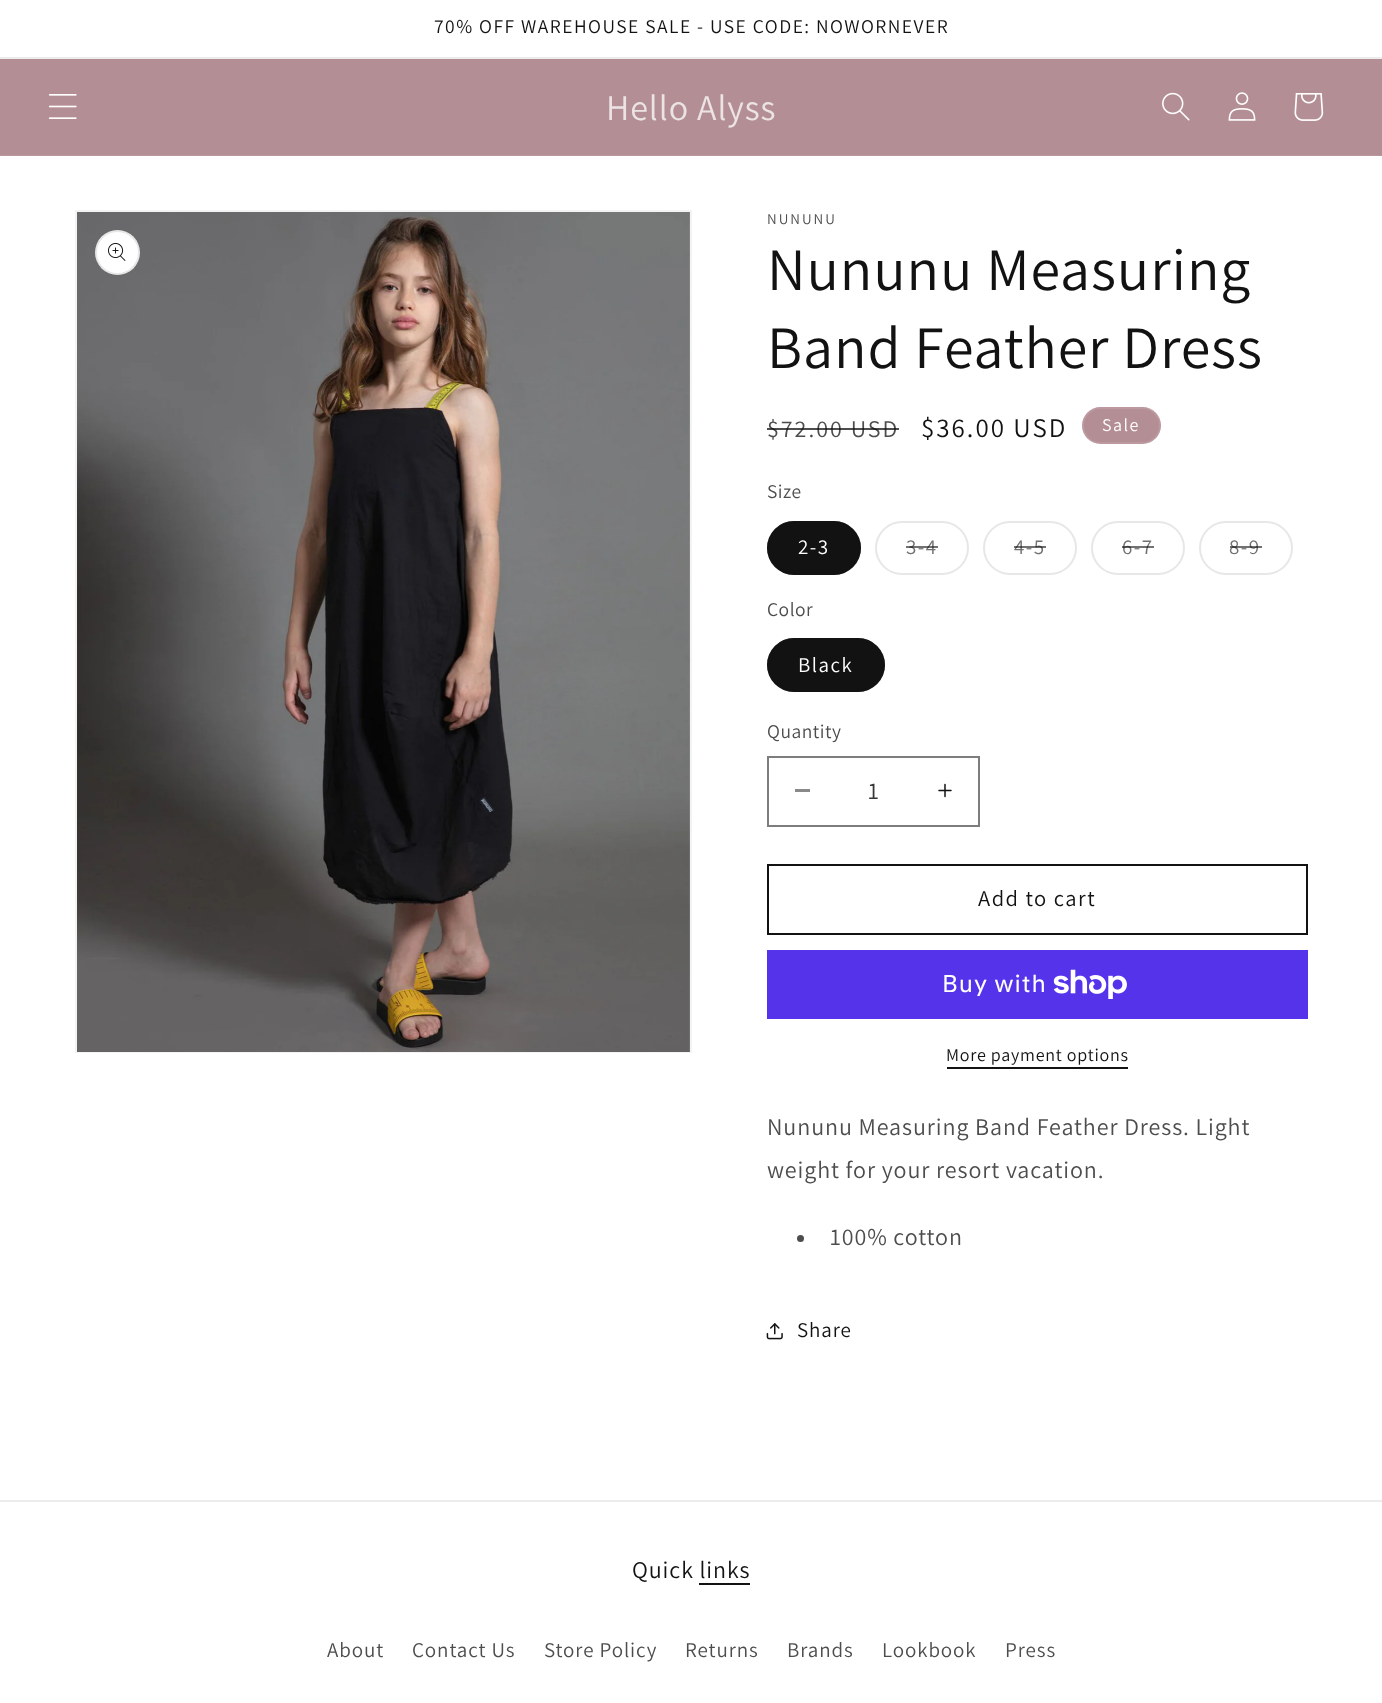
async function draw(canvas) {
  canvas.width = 1382
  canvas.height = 1703
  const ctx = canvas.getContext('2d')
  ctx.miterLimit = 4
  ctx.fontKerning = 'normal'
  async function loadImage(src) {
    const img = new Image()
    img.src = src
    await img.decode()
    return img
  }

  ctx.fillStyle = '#fff'
  ctx.fillRect(0, 0, 1382, 1703)
  ctx.fillStyle = '#ececec'
  ctx.fillRect(0, 57, 1382, 2)
  ctx.letterSpacing = '1.5px'
  ctx.font = '19.5px Assistant'
  ctx.fillStyle = '#121212'
  ctx.fillText('70% OFF WAREHOUSE SALE - USE CODE: NOWORNEVER', 434, 33)
  ctx.fillStyle = '#b48e95'
  ctx.fillRect(0, 59, 1382, 96)
  ctx.fillStyle = '#ba979d'
  ctx.fillRect(0, 155, 1382, 1)
  ctx.drawImage(await loadImage('image0.png'), 48, 94, 29, 25)
  ctx.letterSpacing = '0.9px'
  ctx.font = '36px Assistant'
  ctx.fillStyle = '#ece3e5'
  ctx.fillText('Hello Alyss', 606, 120)
  ctx.drawImage(await loadImage('image1.png'), 1162, 92, 28, 29)
  ctx.drawImage(await loadImage('image2.png'), 1228, 92, 28, 29)
  ctx.drawImage(await loadImage('image3.png'), 1294, 93, 30, 28)
  ctx.strokeStyle = '#f3f3f3'
  ctx.lineWidth = 2
  ctx.strokeRect(76, 211, 615, 841)
  ctx.drawImage(await loadImage('image4.png'), 77, 212, 613, 840)
  ctx.fillStyle = '#fff'
  ctx.beginPath()
  ctx.arc(117.5, 252.5, 22.5, 0, 2 * Math.PI)
  ctx.fill()
  ctx.beginPath()
  ctx.arc(117.5, 252.5, 21.5, 0, 2 * Math.PI)
  ctx.strokeStyle = '#1212121a'
  ctx.stroke()
  ctx.drawImage(await loadImage('image5.png'), 108, 243, 18, 18)
  ctx.letterSpacing = '2px'
  ctx.font = '15px Assistant'
  ctx.fillStyle = '#4d4d4d'
  ctx.fillText('NUNUNU', 767, 224)
  ctx.letterSpacing = '0.9px'
  ctx.font = '60px Assistant'
  ctx.fillStyle = '#121212'
  ctx.fillText('Nununu Measuring', 767, 290)
  ctx.fillText('Band Feather Dress', 767, 368)
  ctx.letterSpacing = '2px'
  ctx.font = '24px Assistant'
  ctx.fillStyle = '#4d4d4d'
  ctx.fillText('$72.00 USD', 767, 437)
  ctx.fillStyle = '#121212bf'
  ctx.fillRect(767, 428, 132, 2)
  ctx.font = '27px Assistant'
  ctx.fillStyle = '#121212'
  ctx.fillText('$36.00 USD', 921, 437)
  ctx.fillStyle = '#b48e95'
  ctx.beginPath()
  ctx.roundRect(1082, 407, 79, 37, 18.5)
  ctx.fill()
  ctx.beginPath()
  ctx.roundRect(1083, 408, 77, 35, 17.5)
  ctx.strokeStyle = '#ffffff1a'
  ctx.stroke()
  ctx.letterSpacing = '1.5px'
  ctx.font = '18px Assistant'
  ctx.fillStyle = '#fff'
  ctx.fillText('Sale', 1102, 431)
  ctx.letterSpacing = '0.5px'
  ctx.font = '19.5px Assistant'
  ctx.fillStyle = '#4d4d4d'
  ctx.fillText('Size', 767, 498)
  ctx.fillStyle = '#121212'
  ctx.beginPath()
  ctx.roundRect(767, 521, 94, 54, 27)
  ctx.fill()
  ctx.beginPath()
  ctx.roundRect(768, 522, 92, 52, 26)
  ctx.strokeStyle = '#1212128c'
  ctx.stroke()
  ctx.letterSpacing = '1.5px'
  ctx.font = '21px Assistant'
  ctx.fillStyle = '#fff'
  ctx.fillText('2-3', 798, 554)
  ctx.beginPath()
  ctx.roundRect(876, 522, 92, 52, 26)
  ctx.strokeStyle = '#e7e7e7'
  ctx.stroke()
  ctx.fillStyle = '#717171'
  ctx.fillText('3-4', 906, 554)
  ctx.fillStyle = '#12121299'
  ctx.fillRect(906, 546, 32, 2)
  ctx.beginPath()
  ctx.roundRect(984, 522, 92, 52, 26)
  ctx.stroke()
  ctx.fillStyle = '#717171'
  ctx.fillText('4-5', 1014, 554)
  ctx.fillStyle = '#12121299'
  ctx.fillRect(1014, 546, 32, 2)
  ctx.beginPath()
  ctx.roundRect(1092, 522, 92, 52, 26)
  ctx.stroke()
  ctx.fillStyle = '#717171'
  ctx.fillText('6-7', 1122, 554)
  ctx.fillStyle = '#12121299'
  ctx.fillRect(1122, 546, 32, 2)
  ctx.beginPath()
  ctx.roundRect(1200, 522, 92, 52, 26)
  ctx.stroke()
  ctx.fillStyle = '#717171'
  ctx.fillText('8-9', 1229, 554)
  ctx.fillStyle = '#12121299'
  ctx.fillRect(1230, 546, 32, 2)
  ctx.letterSpacing = '0.5px'
  ctx.font = '19.5px Assistant'
  ctx.fillStyle = '#4d4d4d'
  ctx.fillText('Color', 767, 616)
  ctx.fillStyle = '#121212'
  ctx.beginPath()
  ctx.roundRect(767, 638, 118, 54, 27)
  ctx.fill()
  ctx.beginPath()
  ctx.roundRect(768, 639, 116, 52, 26)
  ctx.strokeStyle = '#1212128c'
  ctx.stroke()
  ctx.letterSpacing = '1.5px'
  ctx.font = '21px Assistant'
  ctx.fillStyle = '#fff'
  ctx.fillText('Black', 798, 672)
  ctx.letterSpacing = '0.5px'
  ctx.font = '19.5px Assistant'
  ctx.fillStyle = '#4d4d4d'
  ctx.fillText('Quantity', 767, 738)
  ctx.fillStyle = '#898989'
  ctx.fillRect(795, 789, 15, 3)
  ctx.drawImage(await loadImage('image6.png'), 938, 783, 14, 15)
  ctx.strokeStyle = '#7d7d7d'
  ctx.strokeRect(768, 757, 211, 69)
  ctx.letterSpacing = '0px'
  ctx.font = '24px Assistant'
  ctx.fillStyle = '#363636'
  ctx.fillText('1', 868, 799)
  ctx.strokeStyle = '#121212'
  ctx.strokeRect(768, 865, 539, 69)
  ctx.letterSpacing = '1.5px'
  ctx.font = '22.5px Assistant'
  ctx.fillStyle = '#121212'
  ctx.fillText('Add to cart', 978, 906)
  ctx.fillStyle = '#5433eb'
  ctx.fillRect(767, 950, 541, 69)
  ctx.letterSpacing = '0.9px'
  ctx.font = '24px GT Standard'
  ctx.fillStyle = '#fff'
  ctx.fillText('Buy with', 942, 992)
  ctx.drawImage(await loadImage('image7.png'), 1053, 969, 74, 30)
  ctx.letterSpacing = '0.75px'
  ctx.font = '18px Assistant'
  ctx.fillStyle = '#121212'
  ctx.fillText('More payment options', 946, 1061)
  ctx.fillRect(947, 1067, 181, 2)
  ctx.letterSpacing = '0.9px'
  ctx.font = '24px Assistant'
  ctx.fillStyle = '#4d4d4d'
  ctx.fillText('Nununu Measuring Band Feather Dress. Light', 767, 1135)
  ctx.fillText('weight for your resort vacation.', 767, 1178)
  ctx.beginPath()
  ctx.arc(800.5, 1238.5, 3.5, 0, 2 * Math.PI)
  ctx.fill()
  ctx.fillText('100% cotton', 830, 1245)
  ctx.drawImage(await loadImage('image8.png'), 766, 1323, 17, 17)
  ctx.font = '21px Assistant'
  ctx.fillStyle = '#121212'
  ctx.fillText('Share', 797, 1337)
  ctx.fillStyle = '#ececec'
  ctx.fillRect(0, 1500, 1382, 2)
  ctx.font = '24px Assistant'
  ctx.fillStyle = '#121212'
  ctx.fillText('Quick links', 632, 1578)
  ctx.fillRect(699, 1583, 51, 2)
  ctx.font = '21px Assistant'
  ctx.fillStyle = '#4d4d4d'
  ctx.fillText('About', 327, 1657)
  ctx.fillText('Contact Us', 412, 1657)
  ctx.fillText('Store Policy', 544, 1657)
  ctx.fillText('Returns', 685, 1657)
  ctx.fillText('Brands', 787, 1657)
  ctx.fillText('Lookbook', 882, 1657)
  ctx.fillText('Press', 1005, 1657)
}

draw(document.querySelector('canvas'))
